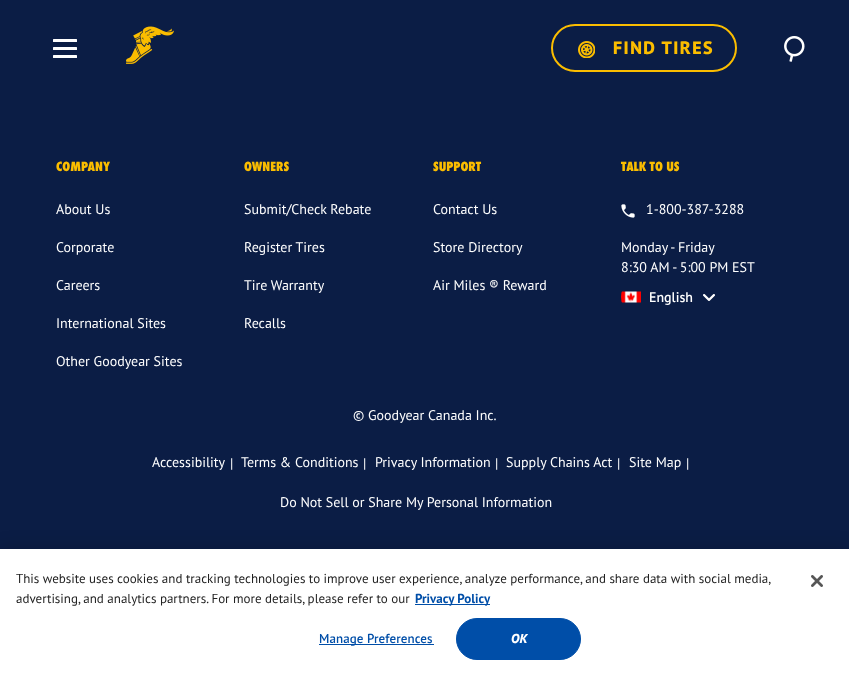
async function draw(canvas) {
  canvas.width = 849
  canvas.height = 676
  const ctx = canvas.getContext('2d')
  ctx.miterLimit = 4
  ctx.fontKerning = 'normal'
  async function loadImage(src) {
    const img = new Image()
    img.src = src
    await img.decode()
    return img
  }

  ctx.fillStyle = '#0b1d45'
  ctx.fillRect(0, 0, 849, 676)
  ctx.fillStyle = '#fff'
  ctx.beginPath()
  ctx.roundRect(53, 39, 24, 3, 0.5)
  ctx.fill()
  ctx.beginPath()
  ctx.roundRect(53, 47, 24, 3, 0.5)
  ctx.fill()
  ctx.beginPath()
  ctx.roundRect(53, 55, 24, 3, 0.5)
  ctx.fill()
  ctx.drawImage(await loadImage('image0.png'), 126, 26, 48, 38)
  ctx.beginPath()
  ctx.roundRect(552, 25, 184, 46, 23)
  ctx.strokeStyle = '#fbbd00'
  ctx.lineWidth = 2
  ctx.stroke()
  ctx.drawImage(await loadImage('image1.png'), 578, 41, 17, 17)
  ctx.letterSpacing = '1.5px'
  ctx.font = '800 18px PT Sans'
  ctx.fillStyle = '#fbbd00'
  ctx.fillText('FIND TIRES', 613, 54)
  ctx.drawImage(await loadImage('image2.png'), 784, 36, 21, 26)
  ctx.letterSpacing = '0px'
  ctx.font = '800 14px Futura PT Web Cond'
  ctx.fillText('COMPANY', 56, 171)
  ctx.font = '14px PT Sans'
  ctx.fillStyle = '#fff'
  ctx.fillText('About Us', 56, 214)
  ctx.fillText('Corporate', 56, 252)
  ctx.fillText('Careers', 56, 290)
  ctx.fillText('International Sites', 56, 328)
  ctx.fillText('Other Goodyear Sites', 56, 366)
  ctx.font = '800 14px Futura PT Web Cond'
  ctx.fillStyle = '#fbbd00'
  ctx.fillText('OWNERS', 244, 171)
  ctx.font = '14px PT Sans'
  ctx.fillStyle = '#fff'
  ctx.fillText('Submit/Check Rebate', 244, 214)
  ctx.fillText('Register Tires', 244, 252)
  ctx.fillText('Tire Warranty', 244, 290)
  ctx.fillText('Recalls', 244, 328)
  ctx.font = '800 14px Futura PT Web Cond'
  ctx.fillStyle = '#fbbd00'
  ctx.fillText('SUPPORT', 433, 171)
  ctx.font = '14px PT Sans'
  ctx.fillStyle = '#fff'
  ctx.fillText('Contact Us', 433, 214)
  ctx.fillText('Store Directory', 433, 252)
  ctx.fillText('Air Miles ® Reward', 433, 290)
  ctx.font = '800 14px Futura PT Web Cond'
  ctx.fillStyle = '#fbbd00'
  ctx.fillText('TALK TO US', 621, 171)
  ctx.drawImage(await loadImage('image3.png'), 621, 204, 14, 14)
  ctx.font = '14px PT Sans'
  ctx.fillStyle = '#fff'
  ctx.fillText('1-800-387-3288', 646, 214)
  ctx.fillText('Monday - Friday', 621, 252)
  ctx.fillText('8:30 AM - 5:00 PM EST', 621, 272)
  ctx.drawImage(await loadImage('image4.png'), 621, 291, 20, 12)
  ctx.font = '600 14px PT Sans'
  ctx.fillText('English', 649, 302)
  ctx.drawImage(await loadImage('image5.png'), 703, 294, 12, 7)
  ctx.font = '14px PT Sans'
  ctx.fillText('© Goodyear Canada Inc.', 353, 420)
  ctx.fillText('Accessibility', 152, 467)
  ctx.fillText('|', 230, 468)
  ctx.fillText('Terms & Conditions', 241, 467)
  ctx.fillText('|', 363, 468)
  ctx.fillText('Privacy Information', 375, 467)
  ctx.fillText('|', 495, 468)
  ctx.fillText('Supply Chains Act', 506, 467)
  ctx.fillText('|', 617, 468)
  ctx.fillText('Site Map', 629, 467)
  ctx.fillText('|', 686, 468)
  ctx.fillText('Do Not Sell or Share My Personal Information', 280, 507)
  ctx.fillStyle = '#00000033'
  ctx.filter = 'blur(9px)'
  ctx.beginPath()
  ctx.rect(0, 549, 849, 127)
  ctx.fill()
  ctx.filter = 'none'
  ctx.fillStyle = '#fff'
  ctx.fillRect(0, 549, 849, 127)
  ctx.font = '13px PT Sans'
  ctx.fillStyle = '#222'
  ctx.fillText('This website uses cookies and tracking technologies to improve user experience, analyze performance, and share data with social media,', 16, 583)
  ctx.fillText('advertising, and analytics partners. For more details, please refer to our', 16, 603)
  ctx.fillStyle = '#004ea8'
  ctx.fillRect(415, 604, 75, 1)
  ctx.font = 'bold 13px PT Sans'
  ctx.fillText('Privacy Policy', 415, 603)
  ctx.fillRect(319, 644, 115, 1)
  ctx.letterSpacing = '0.1px'
  ctx.font = '600 13px PT Sans'
  ctx.fillText('Manage Preferences', 319, 643)
  ctx.beginPath()
  ctx.roundRect(456.5, 618.5, 124, 41, 20.5)
  ctx.fill()
  ctx.strokeStyle = '#004ea8'
  ctx.lineWidth = 1
  ctx.stroke()
  ctx.font = 'italic 800 13px PT Sans'
  ctx.fillStyle = '#fff'
  ctx.fillText('OK', 511, 643)
  ctx.drawImage(await loadImage('image6.png'), 811, 575, 12, 12)
}

draw(document.querySelector('canvas'))
